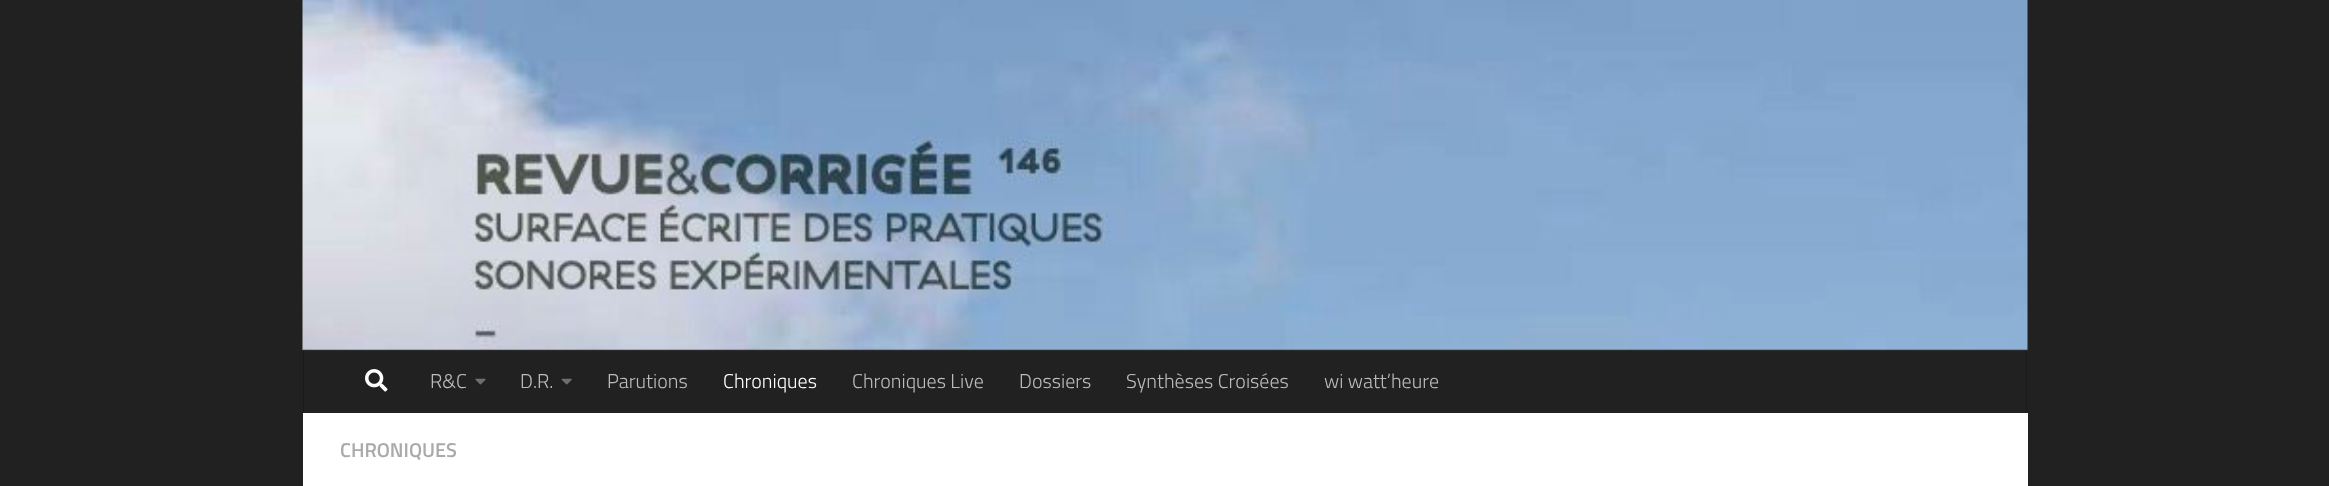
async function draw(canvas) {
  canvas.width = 2329
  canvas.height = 486
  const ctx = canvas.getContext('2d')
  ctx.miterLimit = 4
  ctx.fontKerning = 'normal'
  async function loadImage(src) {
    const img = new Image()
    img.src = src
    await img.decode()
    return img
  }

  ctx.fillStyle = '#212121'
  ctx.fillRect(0, 0, 2329, 486)
  ctx.fillStyle = '#2c2c2c'
  ctx.fillRect(303, 350, 1725, 1)
  ctx.drawImage(await loadImage('image0.png'), 302, 0, 1726, 350)
  ctx.fillStyle = '#00000033'
  ctx.beginPath()
  ctx.moveTo(303, 349)
  ctx.lineTo(303, 350)
  ctx.lineTo(2028, 350)
  ctx.lineTo(2028, 411)
  ctx.lineTo(2028, 349)
  ctx.closePath()
  ctx.fill()
  ctx.fillStyle = '#1a1a1a'
  ctx.fillRect(2026, 350, 1, 63)
  ctx.fillStyle = '#252525'
  ctx.fillRect(2026, 350, 1, 1)
  ctx.fillStyle = '#1a1a1a'
  ctx.fillRect(303, 350, 1, 63)
  ctx.fillStyle = '#252525'
  ctx.fillRect(303, 350, 1, 1)
  ctx.drawImage(await loadImage('image1.png'), 365, 369, 23, 23)
  ctx.font = '300 20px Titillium'
  ctx.fillStyle = '#bcbcbc'
  ctx.fillText('R&C', 430, 388)
  ctx.drawImage(await loadImage('image2.png'), 475, 378, 11, 7)
  ctx.fillText('D.R.', 520, 388)
  ctx.drawImage(await loadImage('image3.png'), 561, 378, 11, 7)
  ctx.fillText('Parutions', 607, 388)
  ctx.fillStyle = '#fff'
  ctx.fillText('Chroniques', 723, 388)
  ctx.fillStyle = '#bcbcbc'
  ctx.fillText('Chroniques Live', 852, 388)
  ctx.fillText('Dossiers', 1019, 388)
  ctx.fillText('Synthèses Croisées', 1126, 388)
  ctx.fillText('wi watt’heure', 1324, 388)
  ctx.fillStyle = '#fff'
  ctx.fillRect(303, 413, 1725, 73)
  ctx.font = '600 20px Titillium'
  ctx.fillStyle = '#aaa'
  ctx.fillText('CHRONIQUES', 340, 457)
}

draw(document.querySelector('canvas'))
